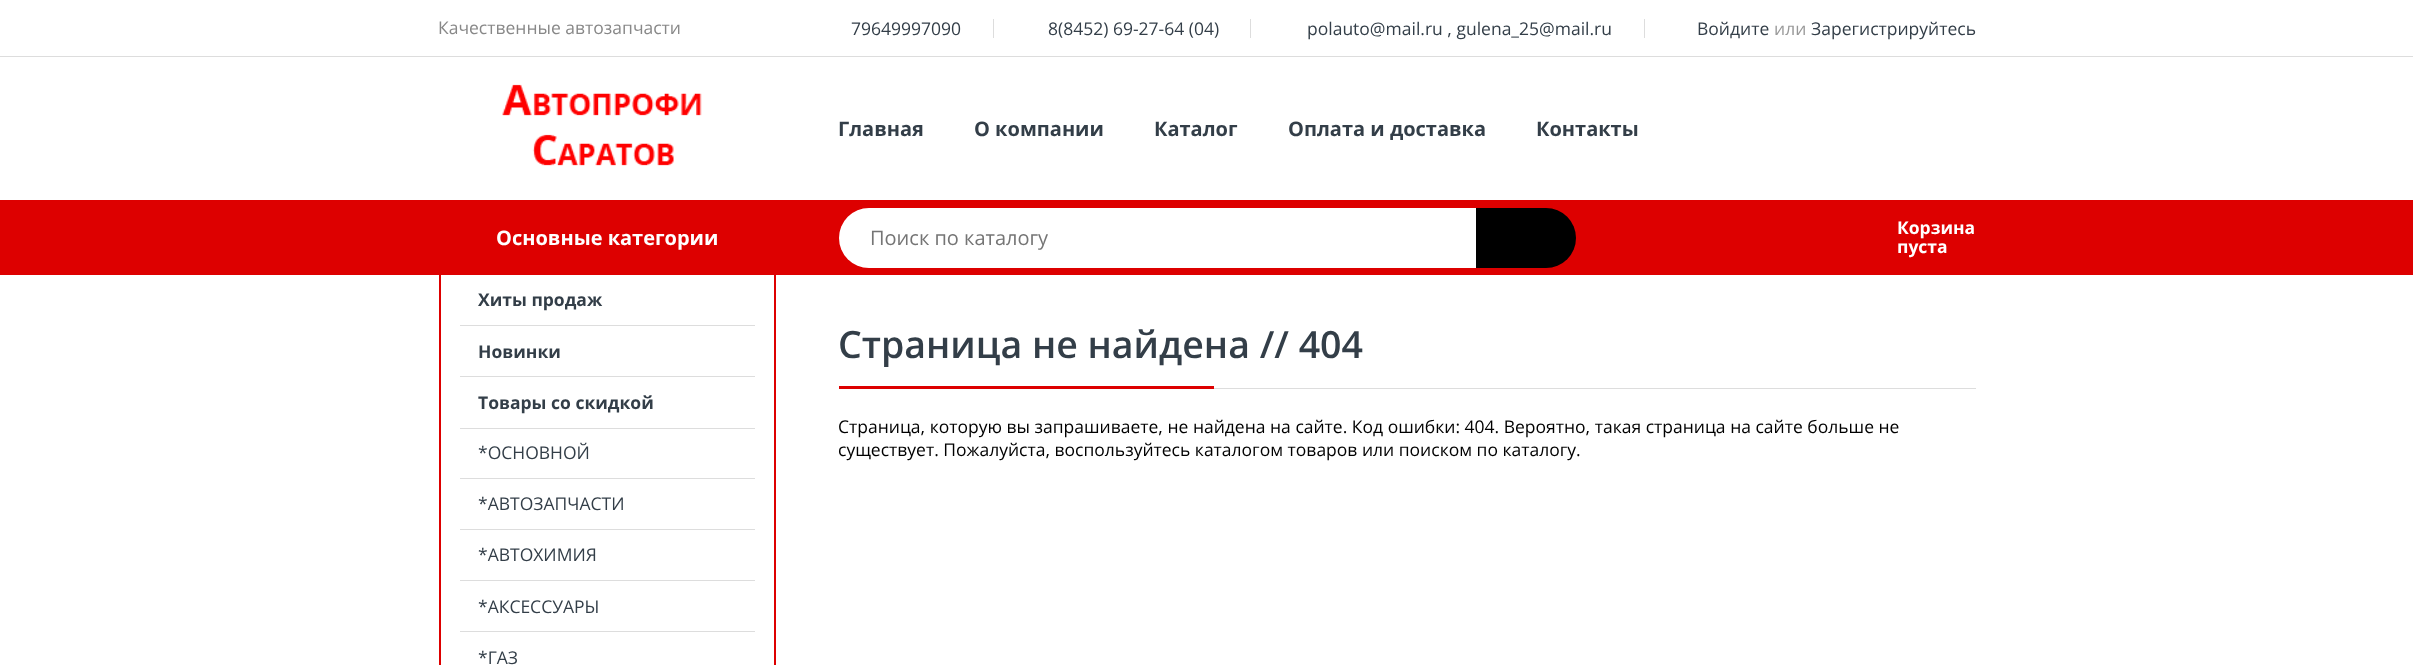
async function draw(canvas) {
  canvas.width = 2413
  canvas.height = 665
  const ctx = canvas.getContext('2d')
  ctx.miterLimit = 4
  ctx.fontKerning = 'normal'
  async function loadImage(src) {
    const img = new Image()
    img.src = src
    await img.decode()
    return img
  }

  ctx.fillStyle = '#fff'
  ctx.fillRect(0, 0, 2413, 665)
  ctx.fillStyle = '#ddd'
  ctx.fillRect(0, 56, 2413, 1)
  ctx.font = '17.5px Open Sans'
  ctx.fillStyle = '#888'
  ctx.fillText('Качественные автозапчасти', 438, 34)
  ctx.fillStyle = '#333e48'
  ctx.fillText('79649997090', 851, 35)
  ctx.fillStyle = '#ddd'
  ctx.fillRect(993, 19, 1, 19)
  ctx.fillStyle = '#333e48'
  ctx.fillText('8(8452) 69-27-64 (04)', 1048, 35)
  ctx.fillStyle = '#ddd'
  ctx.fillRect(1250, 19, 1, 19)
  ctx.fillStyle = '#333e48'
  ctx.fillText('polauto@mail.ru , gulena_25@mail.ru', 1307, 35)
  ctx.fillStyle = '#ddd'
  ctx.fillRect(1644, 19, 1, 19)
  ctx.fillStyle = '#333e48'
  ctx.fillText('Войдите', 1697, 35)
  ctx.fillStyle = '#999'
  ctx.fillText('или', 1774, 35)
  ctx.fillStyle = '#333e48'
  ctx.fillText('Зарегистрируйтесь', 1811, 35)
  ctx.drawImage(await loadImage('image0.png'), 502, 84, 200, 82)
  ctx.font = 'bold 20px Open Sans'
  ctx.fillText('Главная', 838, 136)
  ctx.fillText('О компании', 974, 136)
  ctx.fillText('Каталог', 1154, 136)
  ctx.fillText('Оплата и доставка', 1288, 136)
  ctx.fillText('Контакты', 1536, 136)
  ctx.fillStyle = '#d00'
  ctx.fillRect(0, 200, 2413, 75)
  ctx.fillStyle = '#fff'
  ctx.fillText('Основные категории', 496, 245)
  ctx.beginPath()
  ctx.roundRect(839, 208, 701, 60, [30, 0, 0, 30])
  ctx.fill()
  ctx.font = '20px Open Sans'
  ctx.fillStyle = '#757575'
  ctx.fillText('Поиск по каталогу', 870, 245)
  ctx.fillStyle = '#000'
  ctx.beginPath()
  ctx.roundRect(1476, 208, 100, 60, [0, 30, 30, 0])
  ctx.fill()
  ctx.font = 'bold 17.5px Open Sans'
  ctx.fillStyle = '#fff'
  ctx.fillText('Корзина', 1897, 234)
  ctx.fillText('пуста', 1897, 253)
  ctx.fillStyle = '#d00'
  ctx.beginPath()
  ctx.moveTo(439, 275)
  ctx.lineTo(776, 275)
  ctx.lineTo(776, 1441)
  ctx.bezierCurveTo(776, 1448, 771, 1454, 764, 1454)
  ctx.lineTo(451, 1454)
  ctx.bezierCurveTo(444, 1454, 439, 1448, 439, 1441)
  ctx.closePath()
  ctx.moveTo(441, 275)
  ctx.lineTo(774, 275)
  ctx.lineTo(774, 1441)
  ctx.bezierCurveTo(774, 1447, 769, 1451, 764, 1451)
  ctx.lineTo(451, 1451)
  ctx.bezierCurveTo(446, 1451, 441, 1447, 441, 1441)
  ctx.closePath()
  ctx.fill('evenodd')
  ctx.fillStyle = '#333e48'
  ctx.fillText('Хиты продаж', 478, 306)
  ctx.fillStyle = '#ddd'
  ctx.fillRect(460, 325, 295, 1)
  ctx.fillStyle = '#333e48'
  ctx.fillText('Новинки', 478, 358)
  ctx.fillStyle = '#ddd'
  ctx.fillRect(460, 376, 295, 1)
  ctx.fillStyle = '#333e48'
  ctx.fillText('Товары со скидкой', 478, 409)
  ctx.fillStyle = '#ddd'
  ctx.fillRect(460, 428, 295, 1)
  ctx.font = '17.5px Open Sans'
  ctx.fillStyle = '#333e48'
  ctx.fillText('*OСНОВНОЙ', 478, 459)
  ctx.fillStyle = '#ddd'
  ctx.fillRect(460, 478, 295, 1)
  ctx.fillStyle = '#333e48'
  ctx.fillText('*АВТОЗАПЧАСТИ', 478, 510)
  ctx.fillStyle = '#ddd'
  ctx.fillRect(460, 529, 295, 1)
  ctx.fillStyle = '#333e48'
  ctx.fillText('*АВТОХИМИЯ', 478, 561)
  ctx.fillStyle = '#ddd'
  ctx.fillRect(460, 580, 295, 1)
  ctx.fillStyle = '#333e48'
  ctx.fillText('*АКСЕССУАРЫ', 478, 613)
  ctx.fillStyle = '#ddd'
  ctx.fillRect(460, 631, 295, 1)
  ctx.fillStyle = '#333e48'
  ctx.fillText('*ГАЗ', 478, 664)
  ctx.fillStyle = '#ddd'
  ctx.fillRect(1214, 388, 762, 1)
  ctx.font = '600 37.5px Open Sans'
  ctx.fillStyle = '#333e48'
  ctx.fillText('Страница не найдена // 404', 838, 358)
  ctx.fillStyle = '#d00'
  ctx.fillRect(839, 386, 375, 3)
  ctx.font = '17.5px Open Sans'
  ctx.fillStyle = '#000'
  ctx.fillText('Страница, которую вы запрашиваете, не найдена на сайте. Код ошибки: 404. Вероятно, такая страница на сайте больше не', 838, 433)
  ctx.fillText('существует. Пожалуйста, воспользуйтесь каталогом товаров или поиском по каталогу.', 838, 456)
}

draw(document.querySelector('canvas'))
